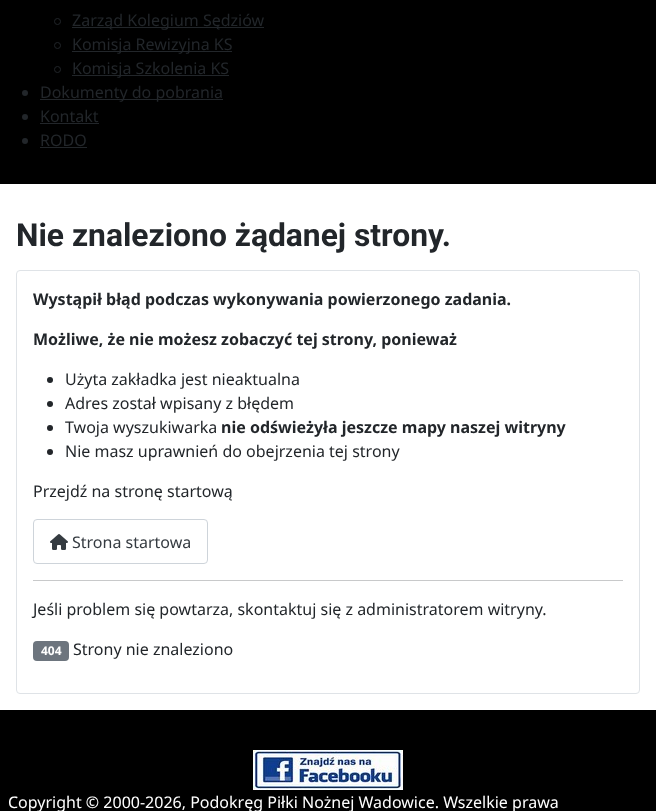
async function draw(canvas) {
  canvas.width = 656
  canvas.height = 811
  const ctx = canvas.getContext('2d')
  ctx.miterLimit = 4
  ctx.fontKerning = 'normal'
  async function loadImage(src) {
    const img = new Image()
    img.src = src
    await img.decode()
    return img
  }

  ctx.fillStyle = '#fff'
  ctx.fillRect(0, 0, 656, 811)
  ctx.fillStyle = '#000'
  ctx.fillRect(0, 0, 656, 184)
  ctx.beginPath()
  ctx.arc(57.5, 21.5, 3, 0, 2 * Math.PI)
  ctx.strokeStyle = '#22262a'
  ctx.stroke()
  ctx.fillStyle = '#22262a'
  ctx.fillRect(72, 27, 192, 1)
  ctx.font = '16px Noto Sans'
  ctx.fillText('Zarząd Kolegium Sędziów', 72, 26)
  ctx.beginPath()
  ctx.arc(57.5, 45.5, 3, 0, 2 * Math.PI)
  ctx.stroke()
  ctx.fillRect(72, 51, 160, 1)
  ctx.fillText('Komisja Rewizyjna KS', 72, 50)
  ctx.beginPath()
  ctx.arc(57.5, 69.5, 3, 0, 2 * Math.PI)
  ctx.stroke()
  ctx.fillRect(72, 75, 157, 1)
  ctx.fillText('Komisja Szkolenia KS', 72, 74)
  ctx.beginPath()
  ctx.arc(25, 93, 3, 0, 2 * Math.PI)
  ctx.fill()
  ctx.fillRect(40, 99, 183, 1)
  ctx.fillText('Dokumenty do pobrania', 40, 98)
  ctx.beginPath()
  ctx.arc(25, 117, 3, 0, 2 * Math.PI)
  ctx.fill()
  ctx.fillText('Kontakt', 40, 122)
  ctx.fillRect(40, 123, 59, 1)
  ctx.beginPath()
  ctx.arc(25, 141, 3, 0, 2 * Math.PI)
  ctx.fill()
  ctx.fillText('RODO', 40, 146)
  ctx.fillRect(40, 147, 47, 1)
  ctx.font = 'bold 31.8px Roboto'
  ctx.fillText('Nie znaleziono żądanej strony.', 16, 246)
  ctx.beginPath()
  ctx.roundRect(16.5, 270.5, 623, 423, 3.5)
  ctx.strokeStyle = '#dfe3e7'
  ctx.stroke()
  ctx.font = 'bold 16px Noto Sans'
  ctx.fillText('Wystąpił błąd podczas wykonywania powierzonego zadania.', 33, 305)
  ctx.fillText('Możliwe, że nie możesz zobaczyć tej strony, ponieważ', 33, 345)
  ctx.beginPath()
  ctx.arc(50, 380, 3, 0, 2 * Math.PI)
  ctx.fill()
  ctx.font = '16px Noto Sans'
  ctx.fillText('Użyta zakładka jest nieaktualna', 65, 385)
  ctx.beginPath()
  ctx.arc(50, 404, 3, 0, 2 * Math.PI)
  ctx.fill()
  ctx.fillText('Adres został wpisany z błędem', 65, 409)
  ctx.beginPath()
  ctx.arc(50, 428, 3, 0, 2 * Math.PI)
  ctx.fill()
  ctx.fillText('Twoja wyszukiwarka', 65, 433)
  ctx.font = 'bold 16px Noto Sans'
  ctx.fillText('nie odświeżyła jeszcze mapy naszej witryny', 221, 433)
  ctx.beginPath()
  ctx.arc(50, 452, 3, 0, 2 * Math.PI)
  ctx.fill()
  ctx.font = '16px Noto Sans'
  ctx.fillText('Nie masz uprawnień do obejrzenia tej strony', 65, 457)
  ctx.fillText('Przejdź na stronę startową', 33, 497)
  ctx.beginPath()
  ctx.roundRect(33.5, 519.5, 174, 44, 3.5)
  ctx.strokeStyle = '#ced4da'
  ctx.stroke()
  ctx.drawImage(await loadImage('image0.png'), 50, 534, 18, 16)
  ctx.fillStyle = '#353b41'
  ctx.fillText('Strona startowa', 72, 548)
  ctx.fillStyle = '#c8c9ca'
  ctx.fillRect(33, 580, 590, 1)
  ctx.fillStyle = '#22262a'
  ctx.fillText('Jeśli problem się powtarza, skontaktuj się z administratorem witryny.', 33, 615)
  ctx.fillStyle = '#6d757e'
  ctx.beginPath()
  ctx.roundRect(33, 641, 36, 20, 4)
  ctx.fill()
  ctx.font = 'bold 12px Noto Sans'
  ctx.fillStyle = '#fff'
  ctx.fillText('404', 41, 655)
  ctx.font = '16px Noto Sans'
  ctx.fillStyle = '#22262a'
  ctx.fillText('Strony nie znaleziono', 73, 655)
  ctx.fillStyle = '#000'
  ctx.fillRect(0, 710, 656, 101)
  ctx.drawImage(await loadImage('image1.png'), 253, 750, 150, 40)
  ctx.fillStyle = '#fff'
  ctx.fillText('Copyright © 2000-2026, Podokręg Piłki Nożnej Wadowice. Wszelkie prawa', 8, 808)
}

draw(document.querySelector('canvas'))
